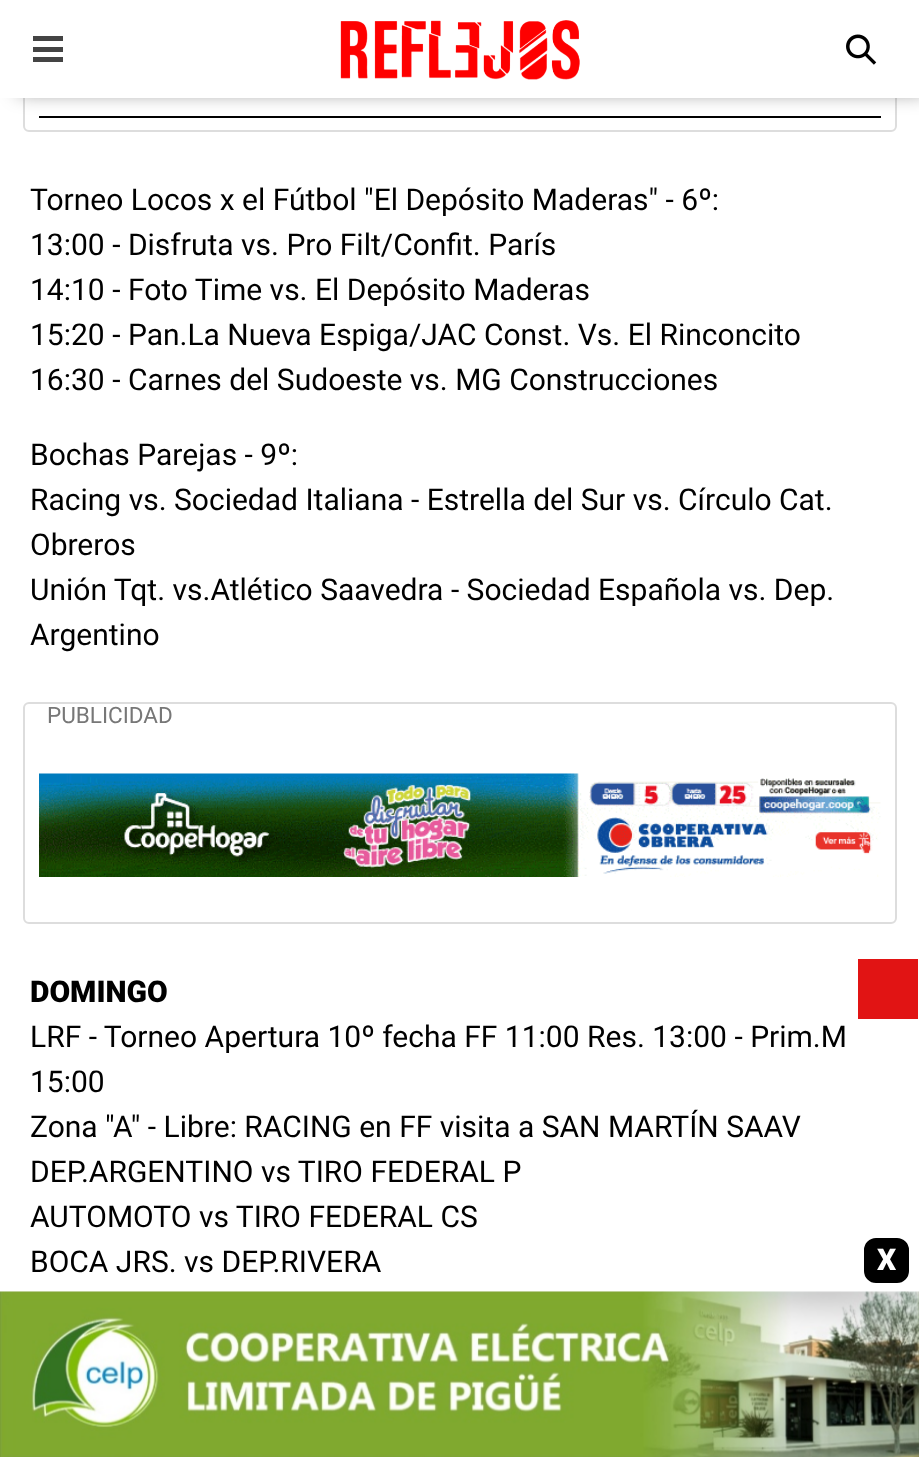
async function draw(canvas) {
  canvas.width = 919
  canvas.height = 1457
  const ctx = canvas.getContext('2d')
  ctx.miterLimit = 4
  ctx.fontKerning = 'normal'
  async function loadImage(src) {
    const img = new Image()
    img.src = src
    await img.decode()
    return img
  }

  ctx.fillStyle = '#fff'
  ctx.fillRect(0, 0, 919, 1457)
  ctx.beginPath()
  ctx.roundRect(24, -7, 872, 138, 5)
  ctx.strokeStyle = '#ddd'
  ctx.lineWidth = 2
  ctx.stroke()
  ctx.fillStyle = '#000'
  ctx.fillRect(39, 116, 842, 2)
  ctx.fillStyle = '#00000080'
  ctx.filter = 'blur(10px)'
  ctx.beginPath()
  ctx.rect(18, 6, 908, 86)
  ctx.fill()
  ctx.filter = 'none'
  ctx.fillStyle = '#fff'
  ctx.fillRect(0, 0, 919, 98)
  ctx.fillStyle = '#444'
  ctx.fillRect(33, 36, 30, 5)
  ctx.fillRect(33, 47, 30, 5)
  ctx.fillRect(33, 57, 30, 5)
  ctx.drawImage(await loadImage('image0.png'), 340, 20, 240, 60)
  ctx.drawImage(await loadImage('image1.png'), 846, 34, 31, 31)
  ctx.font = '30px Roboto'
  ctx.fillStyle = '#000'
  ctx.fillText('Torneo Locos x el Fútbol "El Depósito Maderas" - 6º:', 30, 210)
  ctx.fillText('13:00 - Disfruta vs. Pro Filt/Confit. París', 30, 255)
  ctx.fillText('14:10 - Foto Time vs. El Depósito Maderas', 30, 300)
  ctx.fillText('15:20 - Pan.La Nueva Espiga/JAC Const. Vs. El Rinconcito', 30, 345)
  ctx.fillText('16:30 - Carnes del Sudoeste vs. MG Construcciones', 30, 390)
  ctx.fillText('Bochas Parejas - 9º:', 30, 465)
  ctx.fillText('Racing vs. Sociedad Italiana - Estrella del Sur vs. Círculo Cat.', 30, 510)
  ctx.fillText('Obreros', 30, 555)
  ctx.fillText('Unión Tqt. vs.Atlético Saavedra - Sociedad Española vs. Dep.', 30, 600)
  ctx.fillText('Argentino', 30, 645)
  ctx.beginPath()
  ctx.roundRect(24, 703, 872, 220, 5)
  ctx.stroke()
  ctx.font = '22.5px Roboto'
  ctx.fillStyle = '#777'
  ctx.fillText('PUBLICIDAD', 47, 723)
  ctx.drawImage(await loadImage('image2.png'), 39, 773, 842, 104)
  ctx.font = '900 30px Roboto'
  ctx.fillStyle = '#000'
  ctx.fillText('DOMINGO', 30, 1002)
  ctx.font = '30px Roboto'
  ctx.fillText('LRF - Torneo Apertura 10º fecha FF 11:00 Res. 13:00 - Prim.M', 30, 1047)
  ctx.fillText('15:00', 30, 1092)
  ctx.fillText('Zona "A" - Libre: RACING en FF visita a SAN MARTÍN SAAV', 30, 1137)
  ctx.fillText('DEP.ARGENTINO vs TIRO FEDERAL P', 30, 1182)
  ctx.fillText('AUTOMOTO vs TIRO FEDERAL CS', 30, 1227)
  ctx.fillText('BOCA JRS. vs DEP.RIVERA', 30, 1272)
  ctx.fillStyle = '#e11414'
  ctx.fillRect(858, 959, 60, 60)
  ctx.fillStyle = '#000'
  ctx.beginPath()
  ctx.roundRect(862.5, 1236.5, 48, 48, 13.5)
  ctx.fill()
  ctx.strokeStyle = '#fff'
  ctx.lineWidth = 3
  ctx.stroke()
  ctx.font = '900 30px Roboto'
  ctx.fillStyle = '#fff'
  ctx.fillText('X', 877, 1270)
  ctx.drawImage(await loadImage('image3.png'), 0, 1291, 919, 166)
}

draw(document.querySelector('canvas'))
